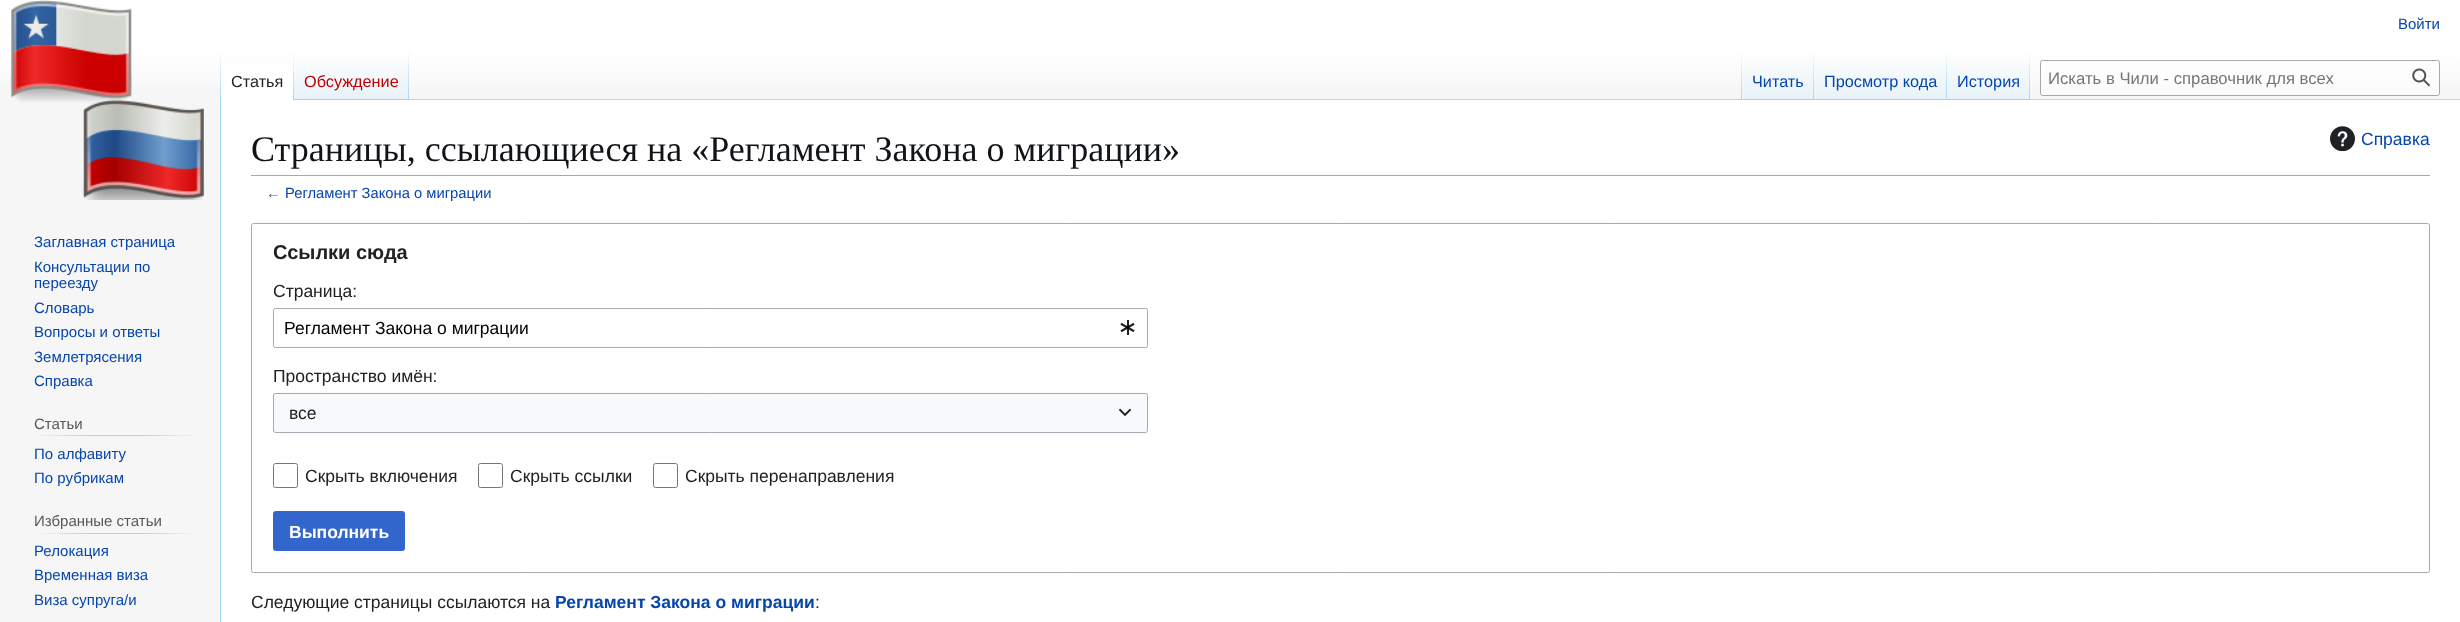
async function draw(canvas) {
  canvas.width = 2460
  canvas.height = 622
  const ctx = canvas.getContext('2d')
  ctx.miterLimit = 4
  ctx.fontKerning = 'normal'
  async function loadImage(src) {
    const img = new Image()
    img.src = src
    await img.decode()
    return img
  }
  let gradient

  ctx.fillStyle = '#f6f6f6'
  ctx.fillRect(0, 0, 2460, 622)
  gradient = ctx.createLinearGradient(1230, 0, 1230, 100)
  gradient.addColorStop(0.5, '#fff')
  gradient.addColorStop(1, '#f6f6f6')
  ctx.fillStyle = gradient
  ctx.fillRect(0, 0, 2460, 86)
  ctx.font = '15px Liberation Sans'
  ctx.fillStyle = '#0645ad'
  ctx.fillText('Войти', 2398, 29)
  ctx.fillStyle = '#a7d7f9'
  ctx.fillRect(220, 99, 1, 523)
  gradient = ctx.createLinearGradient(221, 50, 221, 100)
  gradient.addColorStop(0, '#a7d7f900')
  gradient.addColorStop(1, '#a7d7f9')
  ctx.fillStyle = gradient
  ctx.fillRect(220, 50, 1, 50)
  ctx.fillStyle = '#fff'
  ctx.fillRect(221, 64, 72, 36)
  gradient = ctx.createLinearGradient(293, 50, 293, 100)
  gradient.addColorStop(0, '#fff')
  gradient.addColorStop(1, '#a7d7f9')
  ctx.fillStyle = gradient
  ctx.fillRect(293, 50, 1, 50)
  ctx.font = '16.25px Liberation Sans'
  ctx.fillStyle = '#202122'
  ctx.fillText('Статья', 231, 87)
  gradient = ctx.createLinearGradient(351, 100, 351, 50)
  gradient.addColorStop(0, '#77c1f6')
  gradient.addColorStop(0.03, '#e8f2f8')
  gradient.addColorStop(1, '#fff')
  ctx.fillStyle = gradient
  ctx.fillRect(294, 57, 115, 43)
  gradient = ctx.createLinearGradient(408, 50, 408, 100)
  gradient.addColorStop(0, '#a7d7f900')
  gradient.addColorStop(1, '#a7d7f9')
  ctx.fillStyle = gradient
  ctx.fillRect(408, 50, 1, 50)
  ctx.fillStyle = '#ba0000'
  ctx.fillText('Обсуждение', 304, 87)
  ctx.fillStyle = '#a7d7f9'
  ctx.fillRect(409, 99, 2051, 1)
  gradient = ctx.createLinearGradient(1742, 50, 1742, 100)
  gradient.addColorStop(0, '#a7d7f900')
  gradient.addColorStop(1, '#a7d7f9')
  ctx.fillStyle = gradient
  ctx.fillRect(1741, 50, 1, 50)
  gradient = ctx.createLinearGradient(1778, 100, 1778, 50)
  gradient.addColorStop(0, '#77c1f6')
  gradient.addColorStop(0.03, '#e8f2f8')
  gradient.addColorStop(1, '#fff')
  ctx.fillStyle = gradient
  ctx.fillRect(1743, 57, 71, 43)
  gradient = ctx.createLinearGradient(1813, 50, 1813, 100)
  gradient.addColorStop(0, '#a7d7f900')
  gradient.addColorStop(1, '#a7d7f9')
  ctx.fillStyle = gradient
  ctx.fillRect(1813, 50, 1, 50)
  ctx.fillStyle = '#0645ad'
  ctx.fillText('Читать', 1752, 87)
  gradient = ctx.createLinearGradient(1881, 100, 1881, 50)
  gradient.addColorStop(0, '#77c1f6')
  gradient.addColorStop(0.03, '#e8f2f8')
  gradient.addColorStop(1, '#fff')
  ctx.fillStyle = gradient
  ctx.fillRect(1814, 57, 134, 43)
  gradient = ctx.createLinearGradient(1947, 50, 1947, 100)
  gradient.addColorStop(0, '#a7d7f900')
  gradient.addColorStop(1, '#a7d7f9')
  ctx.fillStyle = gradient
  ctx.fillRect(1946, 50, 1, 50)
  ctx.fillStyle = '#0645ad'
  ctx.fillText('Просмотр кода', 1824, 87)
  gradient = ctx.createLinearGradient(1989, 100, 1989, 50)
  gradient.addColorStop(0, '#77c1f6')
  gradient.addColorStop(0.03, '#e8f2f8')
  gradient.addColorStop(1, '#fff')
  ctx.fillStyle = gradient
  ctx.fillRect(1948, 57, 82, 43)
  gradient = ctx.createLinearGradient(2029, 50, 2029, 100)
  gradient.addColorStop(0, '#a7d7f900')
  gradient.addColorStop(1, '#a7d7f9')
  ctx.fillStyle = gradient
  ctx.fillRect(2029, 50, 1, 50)
  ctx.fillStyle = '#0645ad'
  ctx.fillText('История', 1957, 87)
  ctx.fillStyle = '#ffffff80'
  ctx.beginPath()
  ctx.roundRect(2040.5, 60.5, 399, 35, 2)
  ctx.fill()
  ctx.strokeStyle = '#a2a9b1'
  ctx.stroke()
  ctx.font = '16.7px Liberation Sans'
  ctx.fillStyle = '#72777d'
  ctx.fillText('Искать в Чили - справочник для всех', 2048, 84)
  ctx.drawImage(await loadImage('image0.png'), 2412, 68, 19, 19)
  ctx.drawImage(await loadImage('image1.png'), 10, 0, 195, 200)
  ctx.font = '15px Liberation Sans'
  ctx.fillStyle = '#0645ad'
  ctx.fillText('Заглавная страница', 34, 247)
  ctx.fillText('Консультации по', 34, 272)
  ctx.fillText('переезду', 34, 288)
  ctx.fillText('Словарь', 34, 313)
  ctx.fillText('Вопросы и ответы', 34, 337)
  ctx.fillText('Землетрясения', 34, 362)
  ctx.fillText('Справка', 34, 386)
  gradient = ctx.createLinearGradient(34, 436, 198, 436)
  gradient.addColorStop(0, '#f6f6f6')
  gradient.addColorStop(0.33, '#c8ccd1')
  gradient.addColorStop(0.66, '#c8ccd1')
  gradient.addColorStop(1, '#f6f6f6')
  ctx.fillStyle = gradient
  ctx.fillRect(34, 435, 164, 1)
  ctx.fillStyle = '#54595d'
  ctx.fillText('Статьи', 34, 429)
  ctx.fillStyle = '#0645ad'
  ctx.fillText('По алфавиту', 34, 459)
  ctx.fillText('По рубрикам', 34, 483)
  gradient = ctx.createLinearGradient(34, 533, 198, 533)
  gradient.addColorStop(0, '#f6f6f6')
  gradient.addColorStop(0.33, '#c8ccd1')
  gradient.addColorStop(0.66, '#c8ccd1')
  gradient.addColorStop(1, '#f6f6f6')
  ctx.fillStyle = gradient
  ctx.fillRect(34, 533, 164, 1)
  ctx.fillStyle = '#54595d'
  ctx.fillText('Избранные статьи', 34, 526)
  ctx.fillStyle = '#0645ad'
  ctx.fillText('Релокация', 34, 556)
  ctx.fillText('Временная виза', 34, 580)
  ctx.fillText('Виза супруга/и', 34, 605)
  ctx.fillStyle = '#fff'
  ctx.fillRect(221, 100, 2239, 522)
  ctx.fillStyle = '#a2a9b1'
  ctx.fillRect(251, 175, 2179, 1)
  ctx.font = '36px Liberation Serif'
  ctx.fillStyle = '#101418'
  ctx.fillText('Страницы, ссылающиеся на «Регламент Закона о миграции»', 251, 161)
  ctx.drawImage(await loadImage('image2.png'), 2330, 126, 25, 25)
  ctx.font = '17.5px Liberation Sans'
  ctx.fillStyle = '#0645ad'
  ctx.fillText('Справка', 2361, 145)
  ctx.font = '14.75px Liberation Sans'
  ctx.fillStyle = '#54595d'
  ctx.fillText('←', 266, 198)
  ctx.fillStyle = '#0645ad'
  ctx.fillText('Регламент Закона о миграции', 285, 198)
  ctx.beginPath()
  ctx.roundRect(251.5, 223.5, 2178, 349, 2)
  ctx.stroke()
  ctx.font = 'bold 20px Liberation Sans'
  ctx.fillStyle = '#202122'
  ctx.fillText('Ссылки сюда', 273, 259)
  ctx.font = '17.5px Liberation Sans'
  ctx.fillText('Страница:', 273, 297)
  ctx.beginPath()
  ctx.roundRect(273.5, 308.5, 874, 39, 2)
  ctx.stroke()
  ctx.fillStyle = '#000'
  ctx.fillText('Регламент Закона о миграции', 284, 334)
  ctx.drawImage(await loadImage('image3.png'), 1120, 320, 15, 15)
  ctx.fillStyle = '#202122'
  ctx.fillText('Пространство имён:', 273, 382)
  ctx.fillStyle = '#f8f9fa'
  ctx.fillRect(273, 393, 875, 40)
  ctx.beginPath()
  ctx.roundRect(273.5, 393.5, 874, 39, 2)
  ctx.stroke()
  ctx.fillStyle = '#202122'
  ctx.fillText('все', 289, 419)
  ctx.drawImage(await loadImage('image4.png'), 1119, 408, 13, 9)
  ctx.beginPath()
  ctx.roundRect(273.5, 463.5, 24, 24, 2)
  ctx.strokeStyle = '#72777d'
  ctx.stroke()
  ctx.fillText('Скрыть включения', 305, 482)
  ctx.beginPath()
  ctx.roundRect(478.5, 463.5, 24, 24, 2)
  ctx.stroke()
  ctx.fillText('Скрыть ссылки', 510, 482)
  ctx.beginPath()
  ctx.roundRect(653.5, 463.5, 24, 24, 2)
  ctx.stroke()
  ctx.fillText('Скрыть перенаправления', 685, 482)
  ctx.fillStyle = '#36c'
  ctx.beginPath()
  ctx.roundRect(273.5, 511.5, 131, 39, 2)
  ctx.fill()
  ctx.strokeStyle = '#36c'
  ctx.stroke()
  ctx.font = 'bold 17.5px Liberation Sans'
  ctx.fillStyle = '#fff'
  ctx.fillText('Выполнить', 289, 538)
  ctx.font = '17.5px Liberation Sans'
  ctx.fillStyle = '#202122'
  ctx.fillText('Следующие страницы ссылаются на', 251, 608)
  ctx.font = 'bold 17.5px Liberation Sans'
  ctx.fillStyle = '#0645ad'
  ctx.fillText('Регламент Закона о миграции', 555, 608)
  ctx.font = '17.5px Liberation Sans'
  ctx.fillStyle = '#202122'
  ctx.fillText(':', 815, 608)
}

draw(document.querySelector('canvas'))
